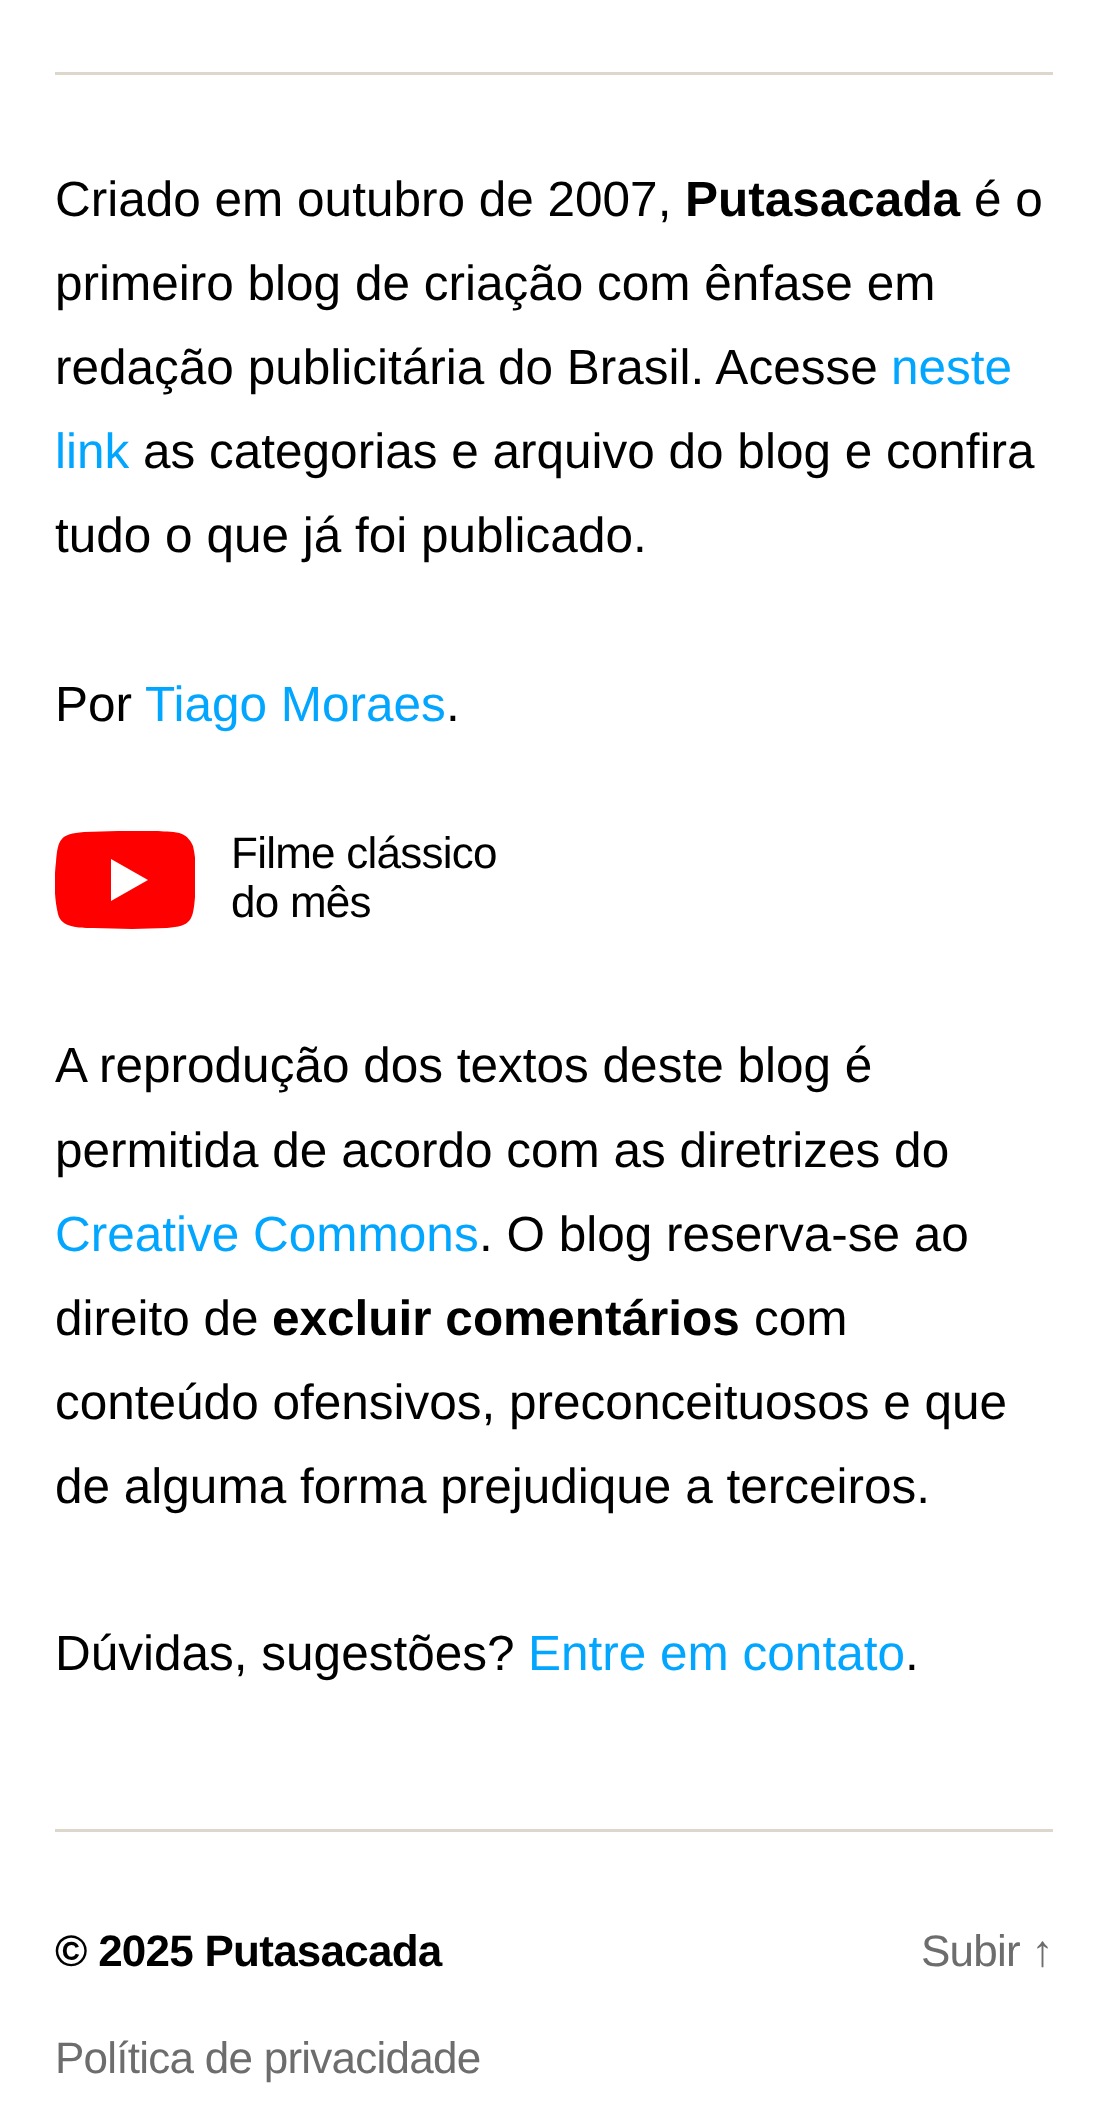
async function draw(canvas) {
  canvas.width = 1107
  canvas.height = 2117
  const ctx = canvas.getContext('2d')
  ctx.miterLimit = 4
  ctx.fontKerning = 'normal'

  ctx.fillStyle = '#fff'
  ctx.fillRect(0, 0, 1107, 2117)
  ctx.fillStyle = '#dcd7ca'
  ctx.fillRect(55, 72, 998, 3)
  ctx.fillRect(55, 1829, 998, 3)
  ctx.font = '49.5px Liberation Sans'
  ctx.fillStyle = '#000'
  ctx.fillText('Criado em outubro de 2007,', 55, 216)
  ctx.font = 'bold 49.5px Liberation Sans'
  ctx.fillText('Putasacada', 685, 216)
  ctx.font = '49.5px Liberation Sans'
  ctx.fillText('é o', 974, 216)
  ctx.fillText('primeiro blog de criação com ênfase em', 55, 300)
  ctx.fillText('redação publicitária do Brasil. Acesse', 55, 384)
  ctx.fillStyle = '#03a6ff'
  ctx.fillText('neste', 891, 384)
  ctx.fillText('link', 55, 468)
  ctx.fillStyle = '#000'
  ctx.fillText('as categorias e arquivo do blog e confira', 143, 468)
  ctx.fillText('tudo o que já foi publicado.', 55, 552)
  ctx.fillText('Por', 55, 721)
  ctx.fillStyle = '#03a6ff'
  ctx.fillText('Tiago Moraes', 145, 721)
  ctx.fillStyle = '#000'
  ctx.fillText('.', 446, 721)
  ctx.save()
  ctx.beginPath()
  ctx.rect(55, 831, 140, 99)
  ctx.clip()
  ctx.fillStyle = '#f00'
  ctx.beginPath()
  ctx.moveTo(193, 846)
  ctx.bezierCurveTo(191, 841, 187, 836, 182, 834)
  ctx.bezierCurveTo(175, 831, 166, 832, 158, 831)
  ctx.lineTo(118, 831)
  ctx.lineTo(84, 832)
  ctx.bezierCurveTo(60, 834, 58, 839, 56, 862)
  ctx.bezierCurveTo(54, 879, 54, 897, 58, 914)
  ctx.bezierCurveTo(59, 919, 63, 923, 68, 925)
  ctx.bezierCurveTo(76, 928, 85, 928, 93, 928)
  ctx.lineTo(132, 929)
  ctx.lineTo(167, 928)
  ctx.bezierCurveTo(191, 926, 193, 921, 195, 897)
  ctx.bezierCurveTo(196, 881, 197, 863, 193, 846)
  ctx.fill()
  ctx.restore()
  ctx.fillStyle = '#fff'
  ctx.beginPath()
  ctx.moveTo(111, 901)
  ctx.lineTo(148, 880)
  ctx.lineTo(111, 859)
  ctx.closePath()
  ctx.fill()
  ctx.letterSpacing = '-0.75px'
  ctx.font = '44px Liberation Sans'
  ctx.fillStyle = '#000'
  ctx.fillText('Filme clássico', 231, 868)
  ctx.fillText('do mês', 231, 917)
  ctx.letterSpacing = '0px'
  ctx.font = '49.5px Liberation Sans'
  ctx.fillText('A reprodução dos textos deste blog é', 55, 1082)
  ctx.fillText('permitida de acordo com as diretrizes do', 55, 1167)
  ctx.fillStyle = '#03a6ff'
  ctx.fillText('Creative Commons', 55, 1251)
  ctx.fillStyle = '#000'
  ctx.fillText('. O blog reserva-se ao', 479, 1251)
  ctx.fillText('direito de', 55, 1335)
  ctx.font = 'bold 49.5px Liberation Sans'
  ctx.fillText('excluir comentários', 272, 1335)
  ctx.font = '49.5px Liberation Sans'
  ctx.fillText('com', 754, 1335)
  ctx.fillText('conteúdo ofensivos, preconceituosos e que', 55, 1419)
  ctx.fillText('de alguma forma prejudique a terceiros.', 55, 1503)
  ctx.fillText('Dúvidas, sugestões?', 55, 1670)
  ctx.fillStyle = '#03a6ff'
  ctx.fillText('Entre em contato', 528, 1670)
  ctx.fillStyle = '#000'
  ctx.fillText('.', 905, 1670)
  ctx.letterSpacing = '-0.75px'
  ctx.font = 'bold 44px Liberation Sans'
  ctx.fillText('© 2025 Putasacada', 55, 1966)
  ctx.font = '44px Liberation Sans'
  ctx.fillStyle = '#6d6d6d'
  ctx.fillText('Política de privacidade', 55, 2073)
  ctx.fillText('Subir ↑', 921, 1966)
}

draw(document.querySelector('canvas'))
